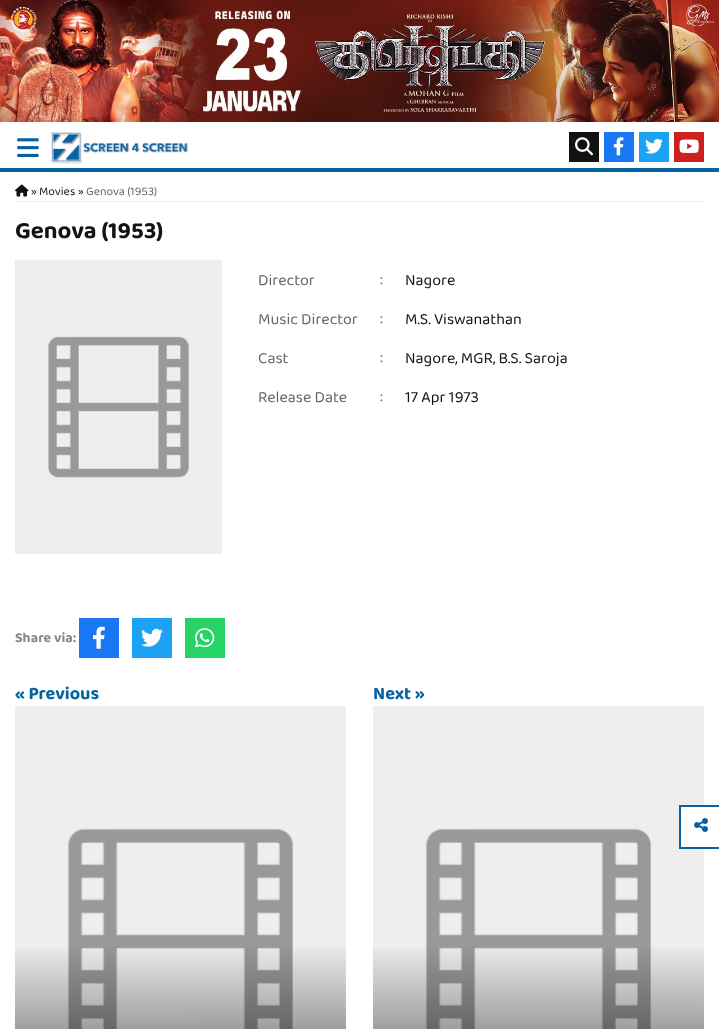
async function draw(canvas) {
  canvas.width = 719
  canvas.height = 1029
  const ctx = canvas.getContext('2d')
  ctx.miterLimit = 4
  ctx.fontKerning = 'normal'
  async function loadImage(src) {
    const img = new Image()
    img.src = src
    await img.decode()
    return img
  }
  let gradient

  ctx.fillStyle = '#fff'
  ctx.fillRect(0, 0, 719, 1029)
  ctx.drawImage(await loadImage('image0.png'), 0, 0, 719, 122)
  ctx.fillStyle = '#0563a1'
  ctx.fillRect(0, 168, 719, 4)
  ctx.drawImage(await loadImage('image1.png'), 17, 138, 22, 19)
  ctx.drawImage(await loadImage('image2.png'), 51, 132, 137, 32)
  ctx.fillStyle = '#121212'
  ctx.fillRect(569, 132, 30, 30)
  ctx.drawImage(await loadImage('image3.png'), 575, 137, 18, 19)
  ctx.fillStyle = '#1877f2'
  ctx.fillRect(604, 132, 30, 30)
  ctx.drawImage(await loadImage('image4.png'), 613, 137, 11, 19)
  ctx.fillStyle = '#1da1f2'
  ctx.fillRect(639, 132, 30, 30)
  ctx.drawImage(await loadImage('image5.png'), 645, 139, 18, 15)
  ctx.fillStyle = '#cd201f'
  ctx.fillRect(674, 132, 30, 30)
  ctx.drawImage(await loadImage('image6.png'), 679, 139, 20, 14)
  ctx.fillStyle = '#eee'
  ctx.fillRect(15, 201, 689, 1)
  ctx.drawImage(await loadImage('image7.png'), 15, 184, 14, 13)
  ctx.font = '12px "Baloo Thambi 2"'
  ctx.fillStyle = '#131313'
  ctx.fillText('»', 31, 195)
  ctx.fillText('Movies', 39, 195)
  ctx.fillText('»', 78, 195)
  ctx.fillStyle = '#666'
  ctx.fillText('Genova (1953)', 86, 195)
  ctx.font = 'bold 24px "Baloo Thambi 2"'
  ctx.fillStyle = '#131313'
  ctx.fillText('Genova (1953)', 15, 238)
  ctx.drawImage(await loadImage('image8.png'), 15, 260, 207, 294)
  ctx.font = '16px "Baloo Thambi 2"'
  ctx.fillStyle = '#666'
  ctx.fillText('Director', 258, 285)
  ctx.font = '15px "Baloo Thambi 2"'
  ctx.fillText(':', 380, 284)
  ctx.font = '16px "Baloo Thambi 2"'
  ctx.fillStyle = '#131313'
  ctx.fillText('Nagore', 405, 285)
  ctx.fillStyle = '#666'
  ctx.fillText('Music Director', 258, 324)
  ctx.font = '15px "Baloo Thambi 2"'
  ctx.fillText(':', 380, 323)
  ctx.font = '16px "Baloo Thambi 2"'
  ctx.fillStyle = '#131313'
  ctx.fillText('M.S. Viswanathan', 405, 324)
  ctx.fillStyle = '#666'
  ctx.fillText('Cast', 258, 363)
  ctx.font = '15px "Baloo Thambi 2"'
  ctx.fillText(':', 380, 362)
  ctx.font = '16px "Baloo Thambi 2"'
  ctx.fillStyle = '#131313'
  ctx.fillText('Nagore, MGR', 405, 363)
  ctx.fillText(', B.S. Saroja', 493, 363)
  ctx.fillStyle = '#666'
  ctx.fillText('Release Date', 258, 402)
  ctx.font = '15px "Baloo Thambi 2"'
  ctx.fillText(':', 380, 401)
  ctx.font = '16px "Baloo Thambi 2"'
  ctx.fillStyle = '#131313'
  ctx.fillText('17 Apr 1973', 405, 402)
  ctx.font = 'bold 14px "Baloo Thambi 2"'
  ctx.fillStyle = '#888'
  ctx.fillText('Share via:', 15, 642)
  ctx.fillStyle = '#1877f2'
  ctx.fillRect(79, 618, 40, 40)
  ctx.drawImage(await loadImage('image9.png'), 93, 626, 12, 23)
  ctx.fillStyle = '#1da1f2'
  ctx.fillRect(132, 618, 40, 40)
  ctx.drawImage(await loadImage('image10.png'), 141, 628, 22, 19)
  ctx.fillStyle = '#25d366'
  ctx.fillRect(185, 618, 40, 40)
  ctx.drawImage(await loadImage('image11.png'), 195, 628, 20, 20)
  ctx.font = 'bold 18px "Baloo Thambi 2"'
  ctx.fillStyle = '#0563a1'
  ctx.fillText('« Previous', 15, 699)
  ctx.drawImage(await loadImage('image12.png'), 15, 706, 331, 323)
  gradient = ctx.createLinearGradient(180, 942, 181, 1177)
  gradient.addColorStop(0, '#00000000')
  gradient.addColorStop(1, '#000000e6')
  ctx.fillStyle = gradient
  ctx.fillRect(15, 947, 331, 82)
  ctx.fillStyle = '#0563a1'
  ctx.fillText('Next »', 373, 699)
  ctx.drawImage(await loadImage('image12.png'), 373, 706, 331, 323)
  gradient = ctx.createLinearGradient(539, 942, 539, 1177)
  gradient.addColorStop(0, '#00000000')
  gradient.addColorStop(1, '#000000e6')
  ctx.fillStyle = gradient
  ctx.fillRect(373, 948, 331, 81)
  ctx.fillStyle = '#0563a1'
  ctx.fillRect(679, 805, 40, 2)
  ctx.fillRect(679, 847, 40, 2)
  ctx.fillRect(679, 805, 2, 44)
  ctx.fillStyle = '#fff'
  ctx.fillRect(681, 807, 23, 40)
  ctx.drawImage(await loadImage('image13.png'), 694, 818, 14, 14)
}

draw(document.querySelector('canvas'))
